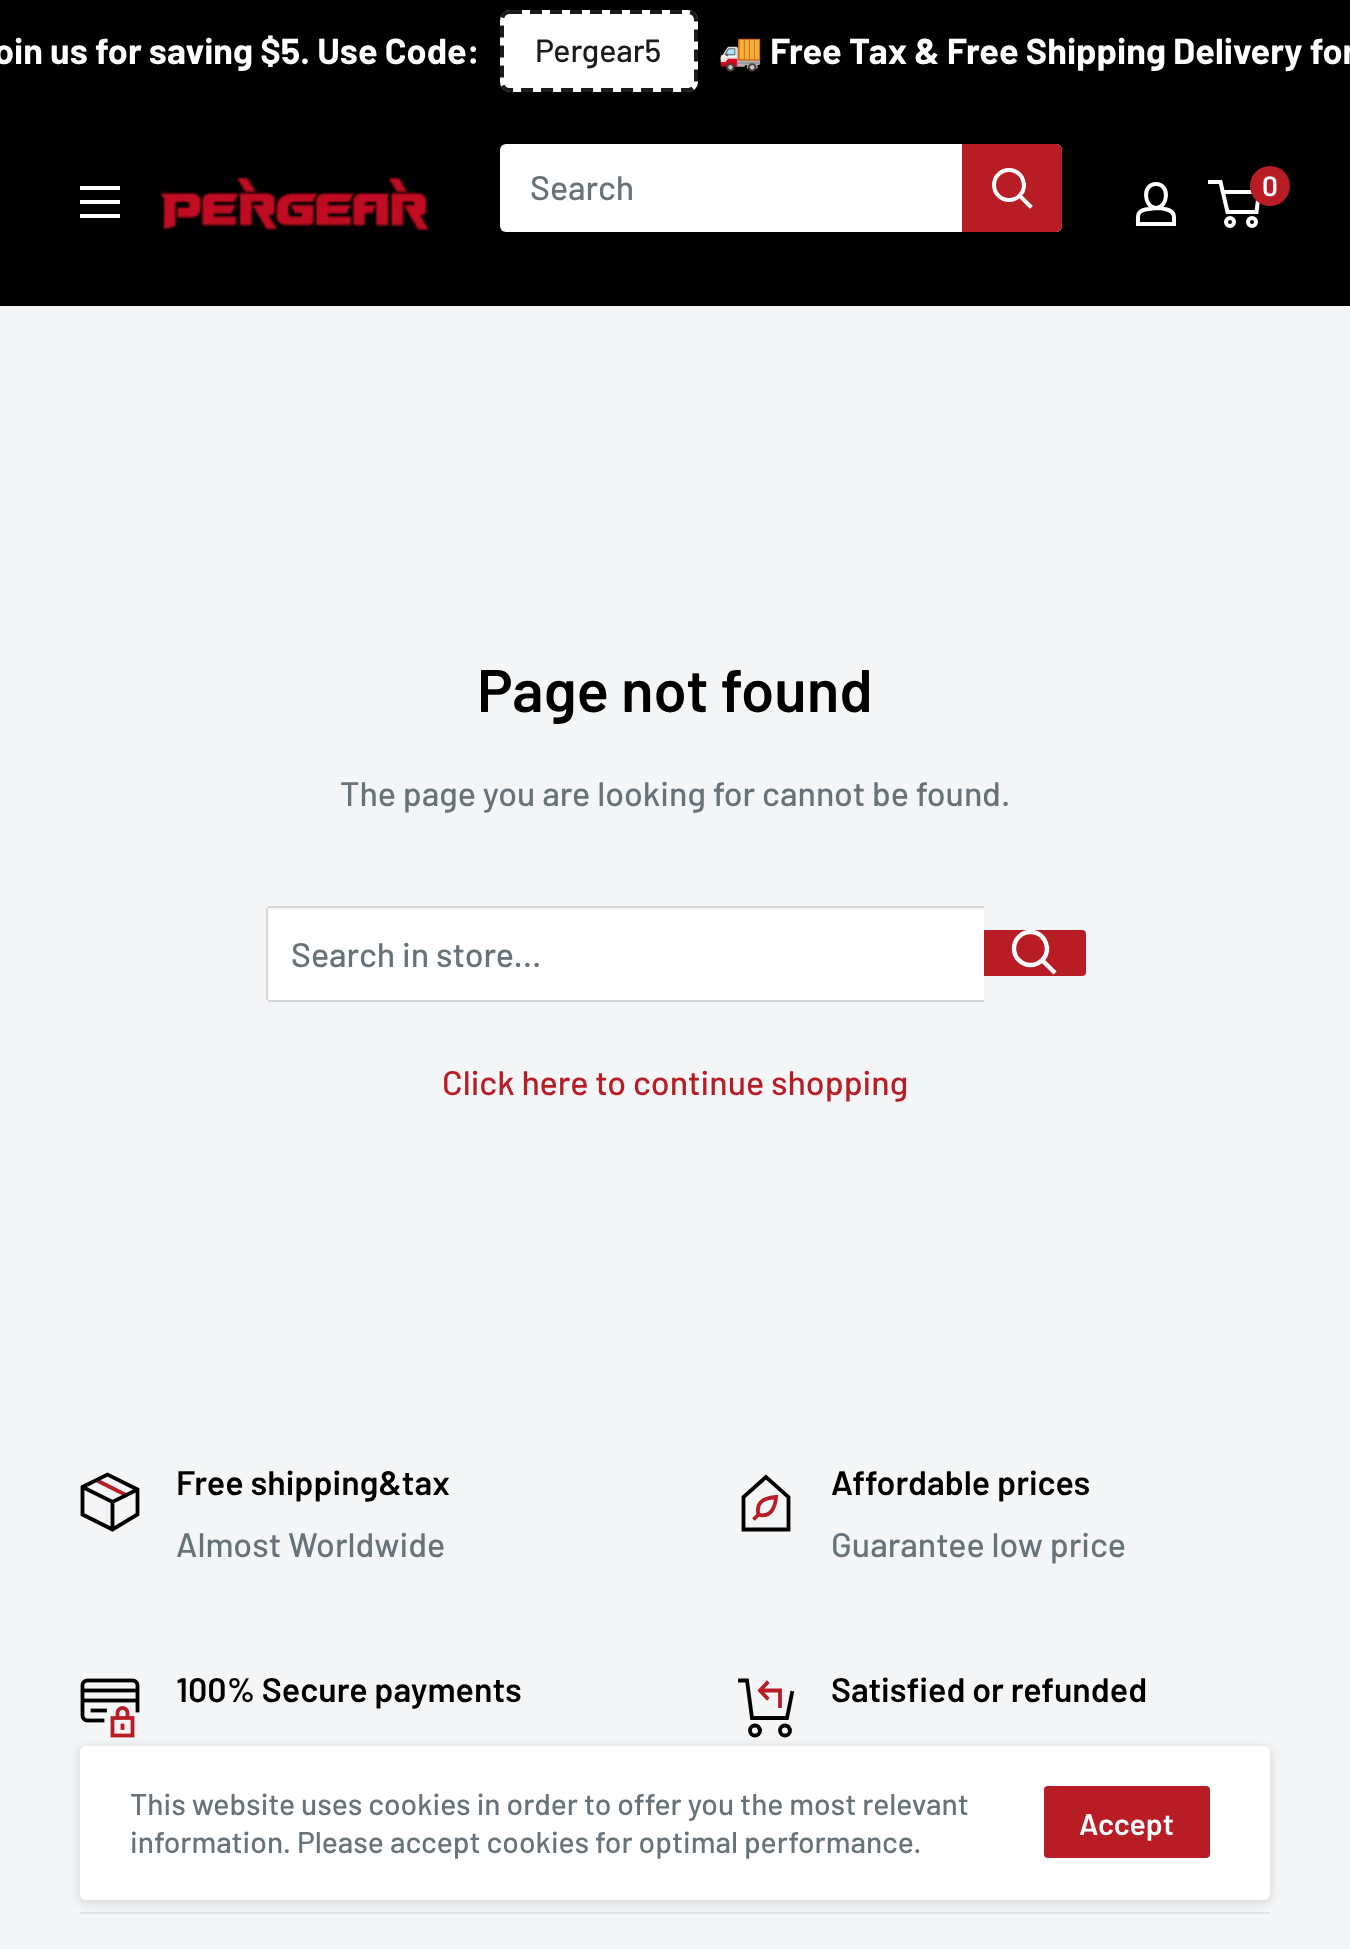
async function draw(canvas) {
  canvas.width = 1350
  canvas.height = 1949
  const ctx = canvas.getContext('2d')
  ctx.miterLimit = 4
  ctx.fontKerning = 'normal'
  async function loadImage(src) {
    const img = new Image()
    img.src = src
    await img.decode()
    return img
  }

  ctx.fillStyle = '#f3f5f6'
  ctx.fillRect(0, 0, 1350, 1949)
  ctx.fillStyle = '#000'
  ctx.fillRect(0, 0, 1350, 306)
  ctx.font = 'bold 36px Barlow'
  ctx.fillStyle = '#fff'
  ctx.fillText('oin us for saving $5. Use Code:', -6, 64)
  ctx.beginPath()
  ctx.roundRect(500, 10, 198, 82, 10)
  ctx.fill()
  ctx.beginPath()
  ctx.moveTo(510, 12)
  ctx.lineTo(688, 12)
  ctx.bezierCurveTo(692.5, 12, 696, 15.5, 696, 20)
  ctx.lineTo(696, 82)
  ctx.bezierCurveTo(696, 86.5, 692.5, 90, 688, 90)
  ctx.lineTo(510, 90)
  ctx.bezierCurveTo(505.5, 90, 502, 86.5, 502, 82)
  ctx.lineTo(502, 20)
  ctx.bezierCurveTo(502, 15.5, 505.5, 12, 510, 12)
  ctx.closePath()
  ctx.strokeStyle = '#1c1a1a'
  ctx.lineWidth = 4
  ctx.setLineDash([12, 8])
  ctx.stroke()
  ctx.font = '500 32px Barlow'
  ctx.fillStyle = '#1c1a1a'
  ctx.fillText('Pergear5', 535, 62)
  ctx.save()
  ctx.beginPath()
  ctx.rect(718, 28, 632, 46)
  ctx.clip()
  ctx.font = 'bold 36px Noto Color Emoji'
  ctx.fillStyle = '#fff'
  ctx.fillText('🚚', 718, 64)
  ctx.restore()
  ctx.font = 'bold 36px Barlow'
  ctx.fillStyle = '#fff'
  ctx.fillText('Free Tax & Free Shipping Delivery for', 770, 64)
  ctx.beginPath()
  ctx.moveTo(80, 214)
  ctx.lineTo(120, 214)
  ctx.lineTo(120, 218)
  ctx.lineTo(80, 218)
  ctx.closePath()
  ctx.moveTo(80, 186)
  ctx.lineTo(120, 186)
  ctx.lineTo(120, 190)
  ctx.lineTo(80, 190)
  ctx.closePath()
  ctx.moveTo(80, 200)
  ctx.lineTo(120, 200)
  ctx.lineTo(120, 204)
  ctx.lineTo(80, 204)
  ctx.closePath()
  ctx.fill('evenodd')
  ctx.drawImage(await loadImage('image0.png'), 160, 177, 270, 54)
  ctx.beginPath()
  ctx.roundRect(500, 144, 562, 88, 6)
  ctx.fill()
  ctx.font = '500 34px Barlow'
  ctx.fillStyle = '#677279'
  ctx.fillText('Search', 530, 200)
  ctx.fillStyle = '#b81c25'
  ctx.beginPath()
  ctx.roundRect(962, 144, 100, 88, [0, 6, 6, 0])
  ctx.fill()
  ctx.beginPath()
  ctx.moveTo(1030, 206)
  ctx.lineTo(1020, 196)
  ctx.strokeStyle = '#fff'
  ctx.lineCap = 'square'
  ctx.setLineDash([])
  ctx.stroke()
  ctx.beginPath()
  ctx.arc(1009, 185, 15, 0, 2 * Math.PI)
  ctx.stroke()
  ctx.beginPath()
  ctx.moveTo(1156, 208)
  ctx.bezierCurveTo(1160, 208, 1163.5, 208.5, 1167, 209.5)
  ctx.bezierCurveTo(1175.5, 212, 1174, 216.5, 1174, 224)
  ctx.lineTo(1138, 224)
  ctx.bezierCurveTo(1138, 216, 1136.5, 211.5, 1145.5, 209.5)
  ctx.closePath()
  ctx.moveTo(1156, 208)
  ctx.bezierCurveTo(1144, 208, 1141.5, 184, 1156, 184)
  ctx.bezierCurveTo(1170.5, 184, 1168, 208, 1156, 208)
  ctx.closePath()
  ctx.lineCap = 'butt'
  ctx.stroke()
  ctx.beginPath()
  ctx.arc(1230, 222, 4, 0, 2 * Math.PI)
  ctx.stroke()
  ctx.beginPath()
  ctx.arc(1252, 222, 4, 0, 2 * Math.PI)
  ctx.stroke()
  ctx.beginPath()
  ctx.moveTo(1222.5, 192)
  ctx.lineTo(1259, 192)
  ctx.lineTo(1256.5, 212)
  ctx.lineTo(1227.5, 212)
  ctx.lineTo(1220.5, 182)
  ctx.lineTo(1208, 182)
  ctx.stroke()
  ctx.beginPath()
  ctx.arc(1270, 186, 20, 0, 2 * Math.PI)
  ctx.fill()
  ctx.font = '600 28px Barlow'
  ctx.fillStyle = '#fff'
  ctx.fillText('0', 1262, 196)
  ctx.font = '600 60px Barlow'
  ctx.fillStyle = '#000'
  ctx.fillText('Page not found', 477, 712)
  ctx.font = '500 34px Barlow'
  ctx.fillStyle = '#677279'
  ctx.fillText('The page you are looking for cannot be found.', 340, 806)
  ctx.fillStyle = '#fff'
  ctx.beginPath()
  ctx.roundRect(266, 906, 718, 96, [4, 0, 0, 4])
  ctx.fill()
  ctx.fillStyle = '#f4f5f5'
  ctx.beginPath()
  ctx.moveTo(270, 910)
  ctx.lineTo(984, 910)
  ctx.lineTo(984, 908)
  ctx.lineTo(270, 908)
  ctx.lineTo(268, 909)
  ctx.lineTo(268, 912)
  ctx.bezierCurveTo(268, 911, 269, 910, 270, 910)
  ctx.closePath()
  ctx.fill()
  ctx.fillStyle = '#d4d6d8'
  ctx.fillRect(268, 906, 716, 2)
  ctx.fillRect(268, 1000, 716, 2)
  ctx.fillRect(266, 908, 2, 92)
  ctx.fillStyle = '#677279'
  ctx.fillText('Search in store...', 291, 967)
  ctx.fillStyle = '#b81c25'
  ctx.beginPath()
  ctx.roundRect(984, 930, 102, 46, [0, 4, 4, 0])
  ctx.fill()
  ctx.beginPath()
  ctx.moveTo(1053.5, 971.5)
  ctx.lineTo(1042.5, 960.5)
  ctx.lineWidth = 4.4
  ctx.lineCap = 'square'
  ctx.stroke()
  ctx.beginPath()
  ctx.arc(1030.5, 948.5, 16.5, 0, 2 * Math.PI)
  ctx.stroke()
  ctx.fillText('Click here to continue shopping', 442, 1095)
  ctx.beginPath()
  ctx.moveTo(96, 1480)
  ctx.lineTo(126, 1495)
  ctx.strokeStyle = '#b81c25'
  ctx.lineWidth = 3.8
  ctx.lineCap = 'butt'
  ctx.stroke()
  ctx.beginPath()
  ctx.moveTo(137.5, 1489.5)
  ctx.lineTo(112.5, 1502)
  ctx.lineTo(82.5, 1487)
  ctx.moveTo(112.5, 1502)
  ctx.lineTo(112.5, 1529.5)
  ctx.strokeStyle = '#000'
  ctx.stroke()
  ctx.beginPath()
  ctx.moveTo(137.5, 1489.5)
  ctx.lineTo(137.5, 1514.5)
  ctx.lineTo(112.5, 1529.5)
  ctx.lineTo(82.5, 1514.5)
  ctx.lineTo(82.5, 1487)
  ctx.lineTo(107.5, 1474.5)
  ctx.closePath()
  ctx.lineCap = 'square'
  ctx.stroke()
  ctx.font = '600 34px Barlow'
  ctx.fillStyle = '#000'
  ctx.fillText('Free shipping&tax', 176, 1495)
  ctx.font = '500 34px Barlow'
  ctx.fillStyle = '#677279'
  ctx.fillText('Almost Worldwide', 176, 1557)
  ctx.beginPath()
  ctx.moveTo(758.5, 1514.5)
  ctx.lineTo(753.5, 1519.5)
  ctx.strokeStyle = '#b81c25'
  ctx.lineCap = 'butt'
  ctx.stroke()
  ctx.beginPath()
  ctx.moveTo(761, 1502)
  ctx.bezierCurveTo(765, 1498, 776, 1497, 776, 1497)
  ctx.bezierCurveTo(775.5, 1507, 770.5, 1518.5, 758.5, 1514.5)
  ctx.bezierCurveTo(758.5, 1514.5, 756, 1507, 761, 1502)
  ctx.closePath()
  ctx.lineCap = 'square'
  ctx.stroke()
  ctx.beginPath()
  ctx.moveTo(766, 1477)
  ctx.lineTo(743.5, 1497)
  ctx.lineTo(743.5, 1529.5)
  ctx.lineTo(788.5, 1529.5)
  ctx.lineTo(788.5, 1497)
  ctx.closePath()
  ctx.strokeStyle = '#000'
  ctx.stroke()
  ctx.font = '600 34px Barlow'
  ctx.fillStyle = '#000'
  ctx.fillText('Affordable prices', 831, 1495)
  ctx.font = '500 34px Barlow'
  ctx.fillStyle = '#677279'
  ctx.fillText('Guarantee low price', 831, 1557)
  ctx.drawImage(await loadImage('image1.png'), 80, 1678, 60, 60)
  ctx.font = '600 34px Barlow'
  ctx.fillStyle = '#000'
  ctx.fillText('100% Secure payments', 176, 1702)
  ctx.beginPath()
  ctx.moveTo(760, 1690.5)
  ctx.lineTo(780, 1690.5)
  ctx.lineTo(780, 1708)
  ctx.strokeStyle = '#b81c25'
  ctx.lineCap = 'butt'
  ctx.stroke()
  ctx.beginPath()
  ctx.moveTo(767, 1698)
  ctx.lineTo(760, 1690.5)
  ctx.lineTo(767, 1683)
  ctx.lineCap = 'square'
  ctx.stroke()
  ctx.beginPath()
  ctx.moveTo(792, 1693)
  ctx.lineTo(787, 1718)
  ctx.lineTo(752, 1718)
  ctx.lineTo(747, 1680.5)
  ctx.lineTo(740, 1680.5)
  ctx.strokeStyle = '#000'
  ctx.stroke()
  ctx.beginPath()
  ctx.arc(755, 1730.5, 5, 0, 2 * Math.PI)
  ctx.stroke()
  ctx.beginPath()
  ctx.arc(785, 1730.5, 5, 0, 2 * Math.PI)
  ctx.stroke()
  ctx.fillText('Satisfied or refunded', 831, 1702)
  ctx.fillStyle = '#e1e3e4'
  ctx.fillRect(80, 1912, 1190, 2)
  ctx.fillStyle = '#0000001a'
  ctx.filter = 'blur(4px)'
  ctx.beginPath()
  ctx.roundRect(78, 1746, 1194, 158, 8)
  ctx.fill()
  ctx.filter = 'none'
  ctx.fillStyle = '#fff'
  ctx.beginPath()
  ctx.roundRect(80, 1746, 1190, 154, 6)
  ctx.fill()
  ctx.font = '500 30px Barlow'
  ctx.fillStyle = '#677279'
  ctx.fillText('This website uses cookies in order to offer you the most relevant', 130, 1815)
  ctx.fillText('information. Please accept cookies for optimal performance.', 130, 1853)
  ctx.fillStyle = '#b81c25'
  ctx.beginPath()
  ctx.roundRect(1044, 1786, 166, 72, 4)
  ctx.fill()
  ctx.font = '600 30px Barlow'
  ctx.fillStyle = '#fff'
  ctx.fillText('Accept', 1079, 1835)
}

draw(document.querySelector('canvas'))
